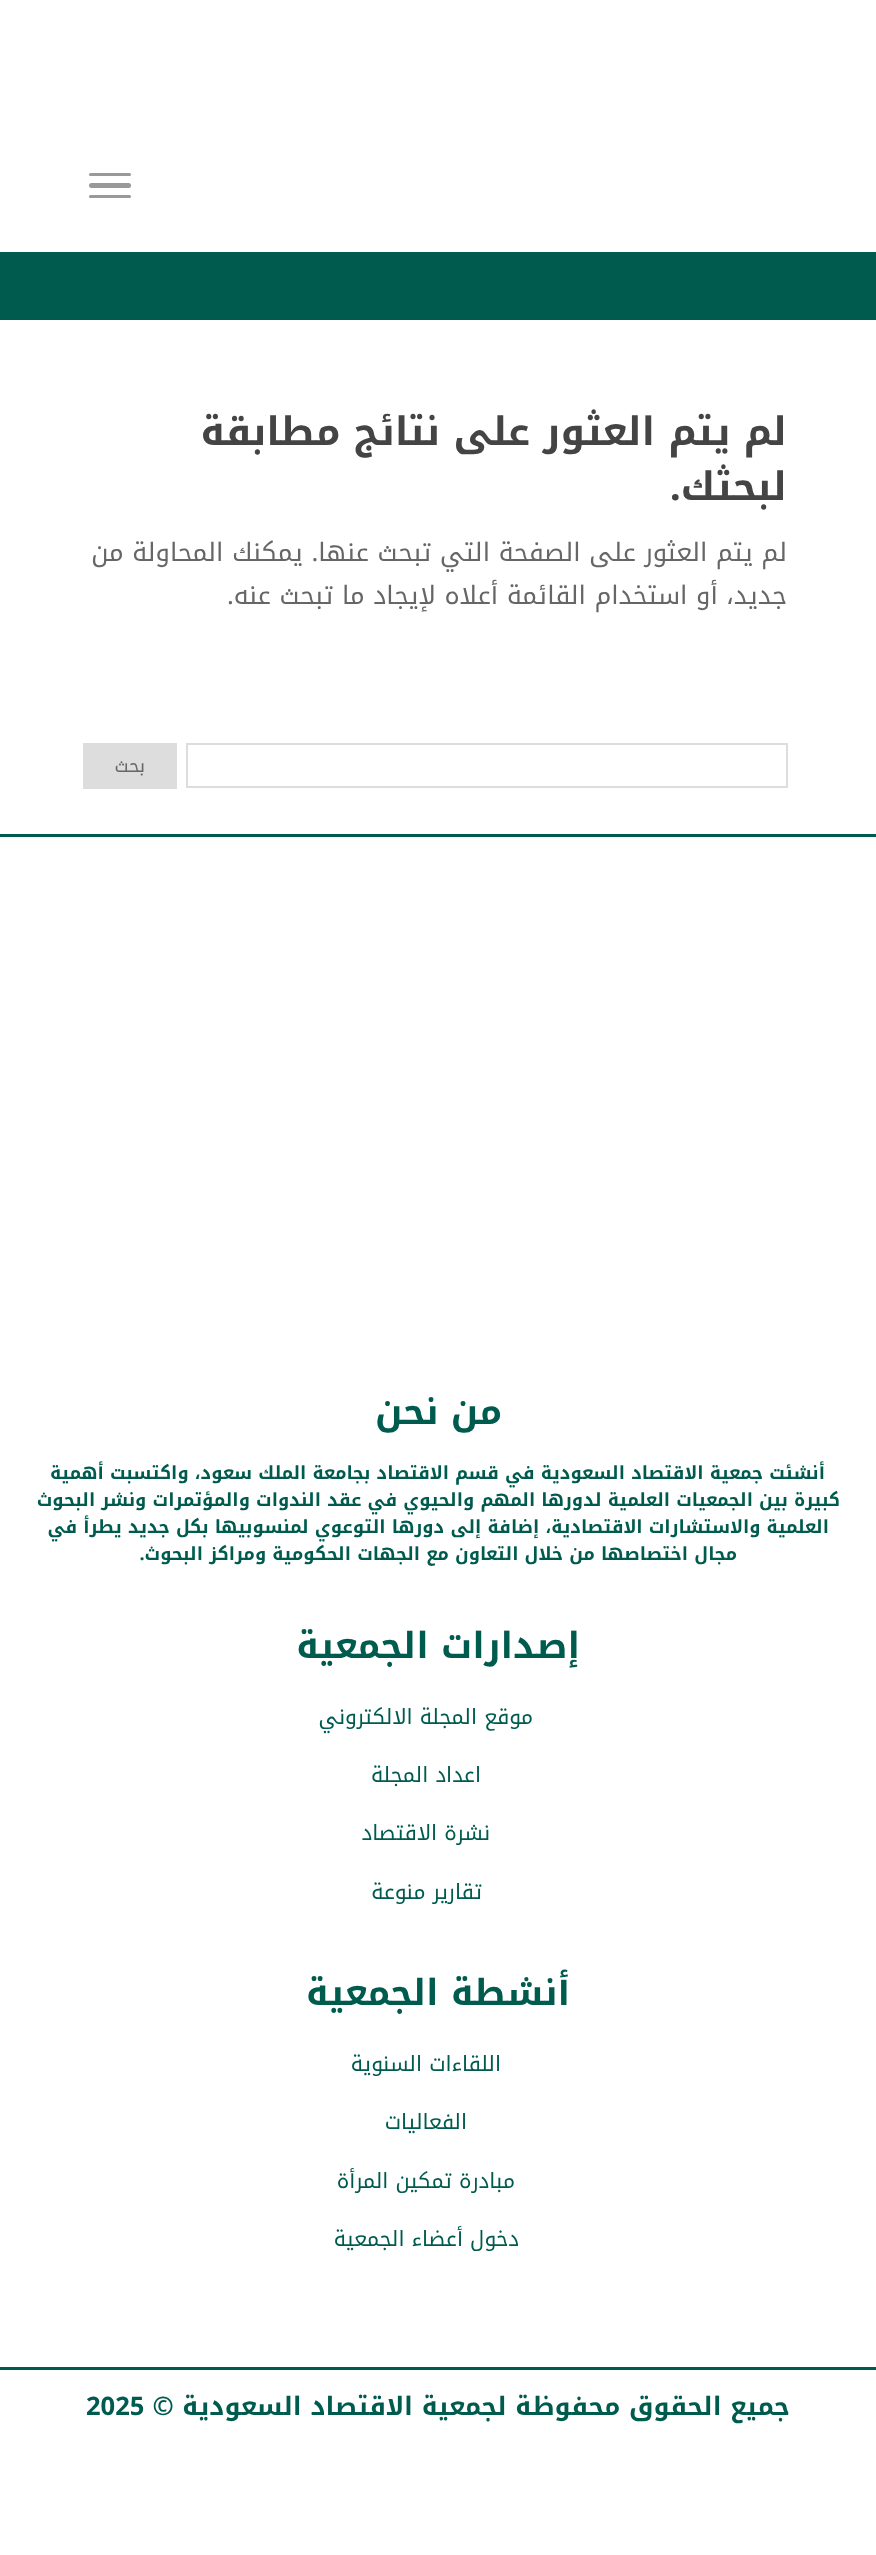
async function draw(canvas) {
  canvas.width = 876
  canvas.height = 2555
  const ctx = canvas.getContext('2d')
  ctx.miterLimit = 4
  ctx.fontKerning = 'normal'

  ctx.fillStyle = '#fff'
  ctx.fillRect(0, 0, 876, 2555)
  ctx.fillStyle = '#999'
  ctx.beginPath()
  ctx.roundRect(89, 195, 42, 3, 1.5)
  ctx.fill()
  ctx.beginPath()
  ctx.roundRect(89, 173, 42, 3, 1.5)
  ctx.fill()
  ctx.beginPath()
  ctx.roundRect(89, 183, 42, 5, 2.5)
  ctx.fill()
  ctx.fillStyle = '#005b4f'
  ctx.fillRect(0, 252, 876, 68)
  ctx.direction = 'rtl'
  ctx.font = 'bold 39px Noto Kufi Arabic'
  ctx.fillStyle = '#444'
  ctx.fillText('لم يتم العثور على نتائج مطابقة', 787, 445)
  ctx.fillText('لبحثك.', 787, 500)
  ctx.font = '25.5px Noto Kufi Arabic'
  ctx.fillStyle = '#666'
  ctx.fillText('لم يتم العثور على الصفحة التي تبحث عنها. يمكنك المحاولة من', 787, 561)
  ctx.fillText('جديد، أو استخدام القائمة أعلاه لإيجاد ما تبحث عنه.', 787, 604)
  ctx.strokeStyle = '#ddd'
  ctx.lineWidth = 2
  ctx.strokeRect(187, 744, 600, 43)
  ctx.fillStyle = '#ddd'
  ctx.fillRect(83, 743, 94, 46)
  ctx.font = '18px Noto Kufi Arabic'
  ctx.fillStyle = '#666'
  ctx.fillText('بحث', 145, 772)
  ctx.fillStyle = '#005b4f'
  ctx.fillRect(0, 834, 876, 3)
  ctx.font = 'bold 36px Noto Kufi Arabic'
  ctx.fillText('من نحن', 502, 1424)
  ctx.font = 'bold 18px Noto Kufi Arabic'
  ctx.fillText('أنشئت جمعية الاقتصاد السعودية في قسم الاقتصاد بجامعة الملك سعود، واكتسبت أهمية', 825, 1479)
  ctx.fillText('كبيرة بين الجمعيات العلمية لدورها المهم والحيوي في عقد الندوات والمؤتمرات ونشر البحوث', 840, 1506)
  ctx.fillText('العلمية والاستشارات الاقتصادية، إضافة إلى دورها التوعوي لمنسوبيها بكل جديد يطرأ في', 829, 1533)
  ctx.fillText('مجال اختصاصها من خلال التعاون مع الجهات الحكومية ومراكز البحوث.', 737, 1560)
  ctx.font = 'bold 36px Noto Kufi Arabic'
  ctx.fillText('إصدارات الجمعية', 580, 1658)
  ctx.font = '21px Noto Kufi Arabic'
  ctx.fillText('موقع المجلة الالكتروني', 533, 1724)
  ctx.fillText('اعداد المجلة', 481, 1782)
  ctx.fillText('نشرة الاقتصاد', 490, 1840)
  ctx.fillText('تقارير منوعة', 482, 1899)
  ctx.font = 'bold 36px Noto Kufi Arabic'
  ctx.fillText('أنشطة الجمعية', 570, 2005)
  ctx.font = '21px Noto Kufi Arabic'
  ctx.fillText('اللقاءات السنوية', 501, 2071)
  ctx.fillText('الفعاليات', 467, 2129)
  ctx.fillText('مبادرة تمكين المرأة', 515, 2188)
  ctx.fillText('دخول أعضاء الجمعية', 519, 2246)
  ctx.fillRect(0, 2367, 876, 3)
  ctx.font = 'bold 25.5px Noto Kufi Arabic'
  ctx.fillText('جميع الحقوق محفوظة لجمعية الاقتصاد السعودية ©', 790, 2415)
  ctx.direction = 'ltr'
  ctx.fillText('2025', 86, 2415)
}

draw(document.querySelector('canvas'))
